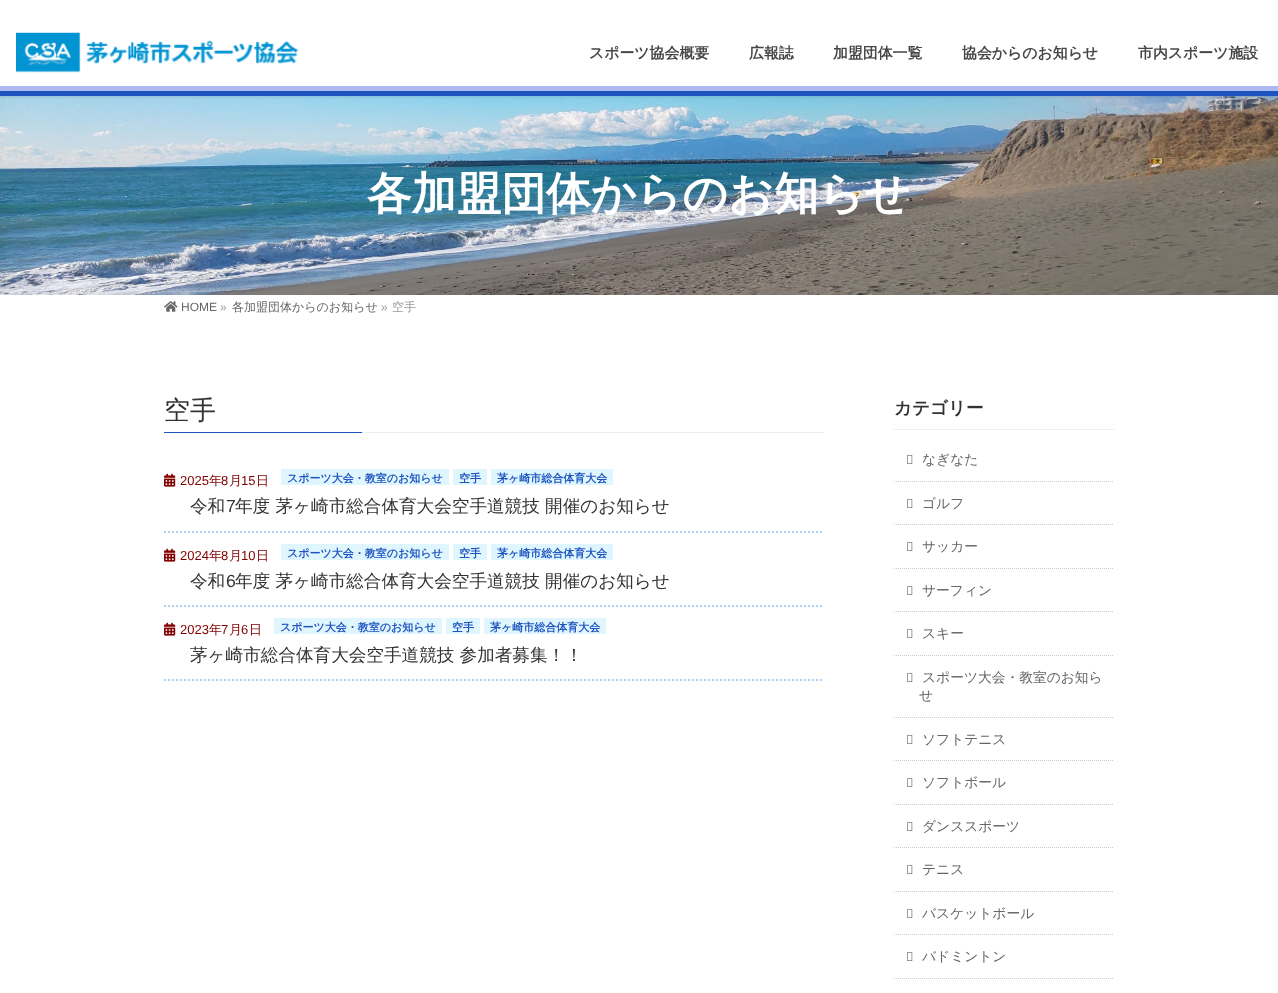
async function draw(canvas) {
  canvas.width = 1278
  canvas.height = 993
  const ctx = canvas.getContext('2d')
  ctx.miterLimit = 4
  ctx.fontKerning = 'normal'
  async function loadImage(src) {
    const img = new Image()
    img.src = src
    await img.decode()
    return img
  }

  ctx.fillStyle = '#fff'
  ctx.fillRect(0, 0, 1278, 993)
  ctx.drawImage(await loadImage('image1.png'), 0, 96, 1278, 199)
  ctx.fillStyle = '#0000001a'
  ctx.filter = 'blur(1.5px)'
  ctx.beginPath()
  ctx.rect(0, 1, 1278, 96)
  ctx.fill()
  ctx.filter = 'none'
  ctx.fillStyle = '#fff'
  ctx.fillRect(0, 0, 1278, 86)
  ctx.fillStyle = '#adb8f2'
  ctx.fillRect(0, 86, 1278, 5)
  ctx.fillStyle = '#1e54bf'
  ctx.fillRect(0, 91, 1278, 5)
  ctx.drawImage(await loadImage('image0.png'), 16, 32, 283, 41)
  ctx.font = 'bold 14.9px WenQuanYi Zen Hei'
  ctx.fillStyle = '#464646'
  ctx.fillText('スポーツ協会概要', 589, 58)
  ctx.fillText('広報誌', 749, 58)
  ctx.fillText('加盟団体一覧', 833, 58)
  ctx.fillText('協会からのお知らせ', 962, 58)
  ctx.fillText('市内スポーツ施設', 1138, 58)
  ctx.font = 'bold 44.75px WenQuanYi Zen Hei'
  ctx.fillStyle = '#fff'
  ctx.fillText('各加盟団体からのお知らせ', 367, 209)
  ctx.drawImage(await loadImage('image2.png'), 164, 301, 14, 11)
  ctx.font = '12px Liberation Sans'
  ctx.fillStyle = '#666'
  ctx.fillText('HOME', 181, 311)
  ctx.fillStyle = '#999'
  ctx.fillText('»', 220, 311)
  ctx.font = '500 12px WenQuanYi Zen Hei'
  ctx.fillStyle = '#666'
  ctx.fillText('各加盟団体からのお知らせ', 232, 311)
  ctx.font = '12px Liberation Sans'
  ctx.fillStyle = '#999'
  ctx.fillText('»', 381, 311)
  ctx.font = '500 12px WenQuanYi Zen Hei'
  ctx.fillText('空手', 392, 311)
  ctx.fillStyle = '#eee'
  ctx.fillRect(362, 432, 462, 1)
  ctx.font = '500 26px WenQuanYi Zen Hei'
  ctx.fillStyle = '#333'
  ctx.fillText('空手', 164, 419)
  ctx.fillStyle = '#1e54bf'
  ctx.fillRect(164, 432, 198, 1)
  ctx.beginPath()
  ctx.moveTo(164, 532)
  ctx.lineTo(824, 532)
  ctx.strokeStyle = '#add2f2'
  ctx.lineWidth = 2
  ctx.setLineDash([2, 2])
  ctx.stroke()
  ctx.drawImage(await loadImage('image3.png'), 164, 473, 12, 14)
  ctx.font = '13px Liberation Sans'
  ctx.fillStyle = '#830000'
  ctx.fillText('2025', 180, 485)
  ctx.font = '500 13px WenQuanYi Zen Hei'
  ctx.fillText('年', 209, 485)
  ctx.font = '13px Liberation Sans'
  ctx.fillText('8', 221, 485)
  ctx.font = '500 13px WenQuanYi Zen Hei'
  ctx.fillText('月', 229, 485)
  ctx.font = '13px Liberation Sans'
  ctx.fillText('15', 241, 485)
  ctx.font = '500 13px WenQuanYi Zen Hei'
  ctx.fillText('日', 256, 485)
  ctx.fillStyle = '#e0f6ff'
  ctx.fillRect(281, 469, 168, 16)
  ctx.font = 'bold 11px WenQuanYi Zen Hei'
  ctx.fillStyle = '#1e54bf'
  ctx.fillText('スポーツ大会・教室のお知らせ', 287, 482)
  ctx.fillStyle = '#e0f6ff'
  ctx.fillRect(453, 469, 34, 16)
  ctx.fillStyle = '#1e54bf'
  ctx.fillText('空手', 459, 482)
  ctx.fillStyle = '#e0f6ff'
  ctx.fillRect(491, 469, 122, 16)
  ctx.fillStyle = '#1e54bf'
  ctx.fillText('茅ヶ崎市総合体育大会', 497, 482)
  ctx.font = '500 17.6px WenQuanYi Zen Hei'
  ctx.fillStyle = '#333'
  ctx.fillText('令和', 190, 512)
  ctx.font = '17.6px Liberation Sans'
  ctx.fillText('7', 226, 512)
  ctx.font = '500 17.6px WenQuanYi Zen Hei'
  ctx.fillText('年度 茅ヶ崎市総合体育大会空手道競技 開催のお知らせ', 235, 512)
  ctx.beginPath()
  ctx.moveTo(164, 606)
  ctx.lineTo(824, 606)
  ctx.stroke()
  ctx.drawImage(await loadImage('image3.png'), 164, 548, 12, 14)
  ctx.font = '13px Liberation Sans'
  ctx.fillStyle = '#830000'
  ctx.fillText('2024', 180, 560)
  ctx.font = '500 13px WenQuanYi Zen Hei'
  ctx.fillText('年', 209, 560)
  ctx.font = '13px Liberation Sans'
  ctx.fillText('8', 221, 560)
  ctx.font = '500 13px WenQuanYi Zen Hei'
  ctx.fillText('月', 229, 560)
  ctx.font = '13px Liberation Sans'
  ctx.fillText('10', 241, 560)
  ctx.font = '500 13px WenQuanYi Zen Hei'
  ctx.fillText('日', 256, 560)
  ctx.fillStyle = '#e0f6ff'
  ctx.fillRect(281, 544, 168, 16)
  ctx.font = 'bold 11px WenQuanYi Zen Hei'
  ctx.fillStyle = '#1e54bf'
  ctx.fillText('スポーツ大会・教室のお知らせ', 287, 557)
  ctx.fillStyle = '#e0f6ff'
  ctx.fillRect(453, 544, 34, 16)
  ctx.fillStyle = '#1e54bf'
  ctx.fillText('空手', 459, 557)
  ctx.fillStyle = '#e0f6ff'
  ctx.fillRect(491, 544, 122, 16)
  ctx.fillStyle = '#1e54bf'
  ctx.fillText('茅ヶ崎市総合体育大会', 497, 557)
  ctx.font = '500 17.6px WenQuanYi Zen Hei'
  ctx.fillStyle = '#333'
  ctx.fillText('令和', 190, 587)
  ctx.font = '17.6px Liberation Sans'
  ctx.fillText('6', 226, 587)
  ctx.font = '500 17.6px WenQuanYi Zen Hei'
  ctx.fillText('年度 茅ヶ崎市総合体育大会空手道競技 開催のお知らせ', 235, 587)
  ctx.beginPath()
  ctx.moveTo(164, 680)
  ctx.lineTo(824, 680)
  ctx.stroke()
  ctx.drawImage(await loadImage('image3.png'), 164, 622, 12, 14)
  ctx.font = '13px Liberation Sans'
  ctx.fillStyle = '#830000'
  ctx.fillText('2023', 180, 634)
  ctx.font = '500 13px WenQuanYi Zen Hei'
  ctx.fillText('年', 209, 634)
  ctx.font = '13px Liberation Sans'
  ctx.fillText('7', 221, 634)
  ctx.font = '500 13px WenQuanYi Zen Hei'
  ctx.fillText('月', 229, 634)
  ctx.font = '13px Liberation Sans'
  ctx.fillText('6', 241, 634)
  ctx.font = '500 13px WenQuanYi Zen Hei'
  ctx.fillText('日', 249, 634)
  ctx.fillStyle = '#e0f6ff'
  ctx.fillRect(274, 618, 168, 16)
  ctx.font = 'bold 11px WenQuanYi Zen Hei'
  ctx.fillStyle = '#1e54bf'
  ctx.fillText('スポーツ大会・教室のお知らせ', 280, 631)
  ctx.fillStyle = '#e0f6ff'
  ctx.fillRect(446, 618, 34, 16)
  ctx.fillStyle = '#1e54bf'
  ctx.fillText('空手', 452, 631)
  ctx.fillStyle = '#e0f6ff'
  ctx.fillRect(484, 618, 122, 16)
  ctx.fillStyle = '#1e54bf'
  ctx.fillText('茅ヶ崎市総合体育大会', 490, 631)
  ctx.font = '500 17.6px WenQuanYi Zen Hei'
  ctx.fillStyle = '#333'
  ctx.fillText('茅ヶ崎市総合体育大会空手道競技 参加者募集！！', 190, 661)
  ctx.fillStyle = '#efefef'
  ctx.fillRect(894, 429, 220, 1)
  ctx.font = 'bold 17.6px WenQuanYi Zen Hei'
  ctx.fillStyle = '#333'
  ctx.fillText('カテゴリー', 894, 414)
  ctx.beginPath()
  ctx.moveTo(894, 481.5)
  ctx.lineTo(1114, 481.5)
  ctx.strokeStyle = '#ccc'
  ctx.lineWidth = 1
  ctx.setLineDash([1, 1])
  ctx.stroke()
  ctx.drawImage(await loadImage('image4.png'), 907, 455, 6, 9)
  ctx.font = '500 13.75px WenQuanYi Zen Hei'
  ctx.fillStyle = '#666'
  ctx.fillText('なぎなた', 922, 464)
  ctx.beginPath()
  ctx.moveTo(894, 524.5)
  ctx.lineTo(1114, 524.5)
  ctx.stroke()
  ctx.drawImage(await loadImage('image4.png'), 907, 499, 6, 9)
  ctx.fillText('ゴルフ', 922, 508)
  ctx.beginPath()
  ctx.moveTo(894, 568.5)
  ctx.lineTo(1114, 568.5)
  ctx.stroke()
  ctx.drawImage(await loadImage('image4.png'), 907, 542, 6, 9)
  ctx.fillText('サッカー', 922, 551)
  ctx.beginPath()
  ctx.moveTo(894, 611.5)
  ctx.lineTo(1114, 611.5)
  ctx.stroke()
  ctx.drawImage(await loadImage('image4.png'), 907, 586, 6, 9)
  ctx.fillText('サーフィン', 922, 595)
  ctx.beginPath()
  ctx.moveTo(894, 655.5)
  ctx.lineTo(1114, 655.5)
  ctx.stroke()
  ctx.drawImage(await loadImage('image4.png'), 907, 629, 6, 9)
  ctx.fillText('スキー', 922, 638)
  ctx.beginPath()
  ctx.moveTo(894, 717.5)
  ctx.lineTo(1114, 717.5)
  ctx.stroke()
  ctx.drawImage(await loadImage('image4.png'), 907, 673, 6, 9)
  ctx.fillText('スポーツ大会・教室のお知ら', 922, 682)
  ctx.fillText('せ', 919, 700)
  ctx.beginPath()
  ctx.moveTo(894, 760.5)
  ctx.lineTo(1114, 760.5)
  ctx.stroke()
  ctx.drawImage(await loadImage('image4.png'), 907, 735, 6, 9)
  ctx.fillText('ソフトテニス', 922, 744)
  ctx.beginPath()
  ctx.moveTo(894, 804.5)
  ctx.lineTo(1114, 804.5)
  ctx.stroke()
  ctx.drawImage(await loadImage('image4.png'), 907, 778, 6, 9)
  ctx.fillText('ソフトボール', 922, 787)
  ctx.beginPath()
  ctx.moveTo(894, 847.5)
  ctx.lineTo(1114, 847.5)
  ctx.stroke()
  ctx.drawImage(await loadImage('image4.png'), 907, 822, 6, 9)
  ctx.fillText('ダンススポーツ', 922, 831)
  ctx.beginPath()
  ctx.moveTo(894, 891.5)
  ctx.lineTo(1114, 891.5)
  ctx.stroke()
  ctx.drawImage(await loadImage('image4.png'), 907, 865, 6, 9)
  ctx.fillText('テニス', 922, 874)
  ctx.beginPath()
  ctx.moveTo(894, 934.5)
  ctx.lineTo(1114, 934.5)
  ctx.stroke()
  ctx.drawImage(await loadImage('image4.png'), 907, 909, 6, 9)
  ctx.fillText('バスケットボール', 922, 918)
  ctx.beginPath()
  ctx.moveTo(894, 978.5)
  ctx.lineTo(1114, 978.5)
  ctx.stroke()
  ctx.drawImage(await loadImage('image4.png'), 907, 952, 6, 9)
  ctx.fillText('バドミントン', 922, 961)
}

draw(document.querySelector('canvas'))
